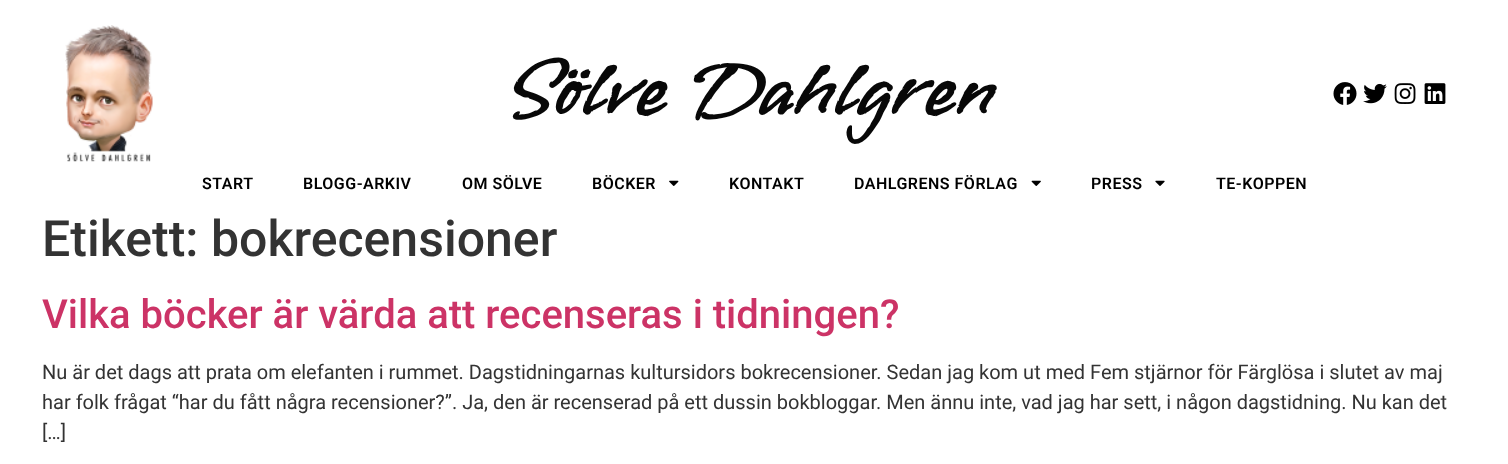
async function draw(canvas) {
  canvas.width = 1508
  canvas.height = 464
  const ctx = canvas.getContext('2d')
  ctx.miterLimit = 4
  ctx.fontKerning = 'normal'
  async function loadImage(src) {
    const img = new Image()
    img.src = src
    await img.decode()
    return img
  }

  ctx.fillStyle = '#fff'
  ctx.fillRect(0, 0, 1508, 464)
  ctx.drawImage(await loadImage('image0.png'), 65, 25, 88, 137)
  ctx.font = 'bold 80px Vujahday Script'
  ctx.fillStyle = '#080808'
  ctx.fillText('Sölve Dahlgren', 500, 114)
  ctx.drawImage(await loadImage('image1.png'), 1333, 82, 24, 23)
  ctx.drawImage(await loadImage('image2.png'), 1363, 83, 24, 21)
  ctx.drawImage(await loadImage('image3.png'), 1394, 83, 22, 21)
  ctx.drawImage(await loadImage('image4.png'), 1424, 83, 22, 21)
  ctx.letterSpacing = '0.5px'
  ctx.font = '600 16px Roboto'
  ctx.fillStyle = '#000'
  ctx.fillText('START', 202, 189)
  ctx.fillText('BLOGG-ARKIV', 303, 189)
  ctx.fillText('OM SÖLVE', 462, 189)
  ctx.fillText('BÖCKER', 592, 189)
  ctx.drawImage(await loadImage('image5.png'), 669, 180, 10, 6)
  ctx.fillText('KONTAKT', 729, 189)
  ctx.fillText('DAHLGRENS FÖRLAG', 854, 189)
  ctx.drawImage(await loadImage('image6.png'), 1031, 180, 10, 6)
  ctx.fillText('PRESS', 1091, 189)
  ctx.drawImage(await loadImage('image7.png'), 1155, 180, 10, 6)
  ctx.fillText('TE-KOPPEN', 1216, 189)
  ctx.letterSpacing = '0px'
  ctx.font = '500 50px Roboto'
  ctx.fillStyle = '#333'
  ctx.fillText('Etikett: bokrecensioner', 42, 256)
  ctx.font = '500 40px Roboto'
  ctx.fillStyle = '#c36'
  ctx.fillText('Vilka böcker är värda att recenseras i tidningen?', 42, 328)
  ctx.font = '20px Roboto'
  ctx.fillStyle = '#333'
  ctx.fillText('Nu är det dags att prata om elefanten i rummet. Dagstidningarnas kultursidors bokrecensioner. Sedan jag kom ut med Fem stjärnor för Färglösa i slutet av maj', 42, 379)
  ctx.fillText('har folk frågat “har du fått några recensioner?”. Ja, den är recenserad på ett dussin bokbloggar. Men ännu inte, vad jag har sett, i någon dagstidning. Nu kan det', 42, 409)
  ctx.fillText('[…]', 42, 439)
}

draw(document.querySelector('canvas'))
